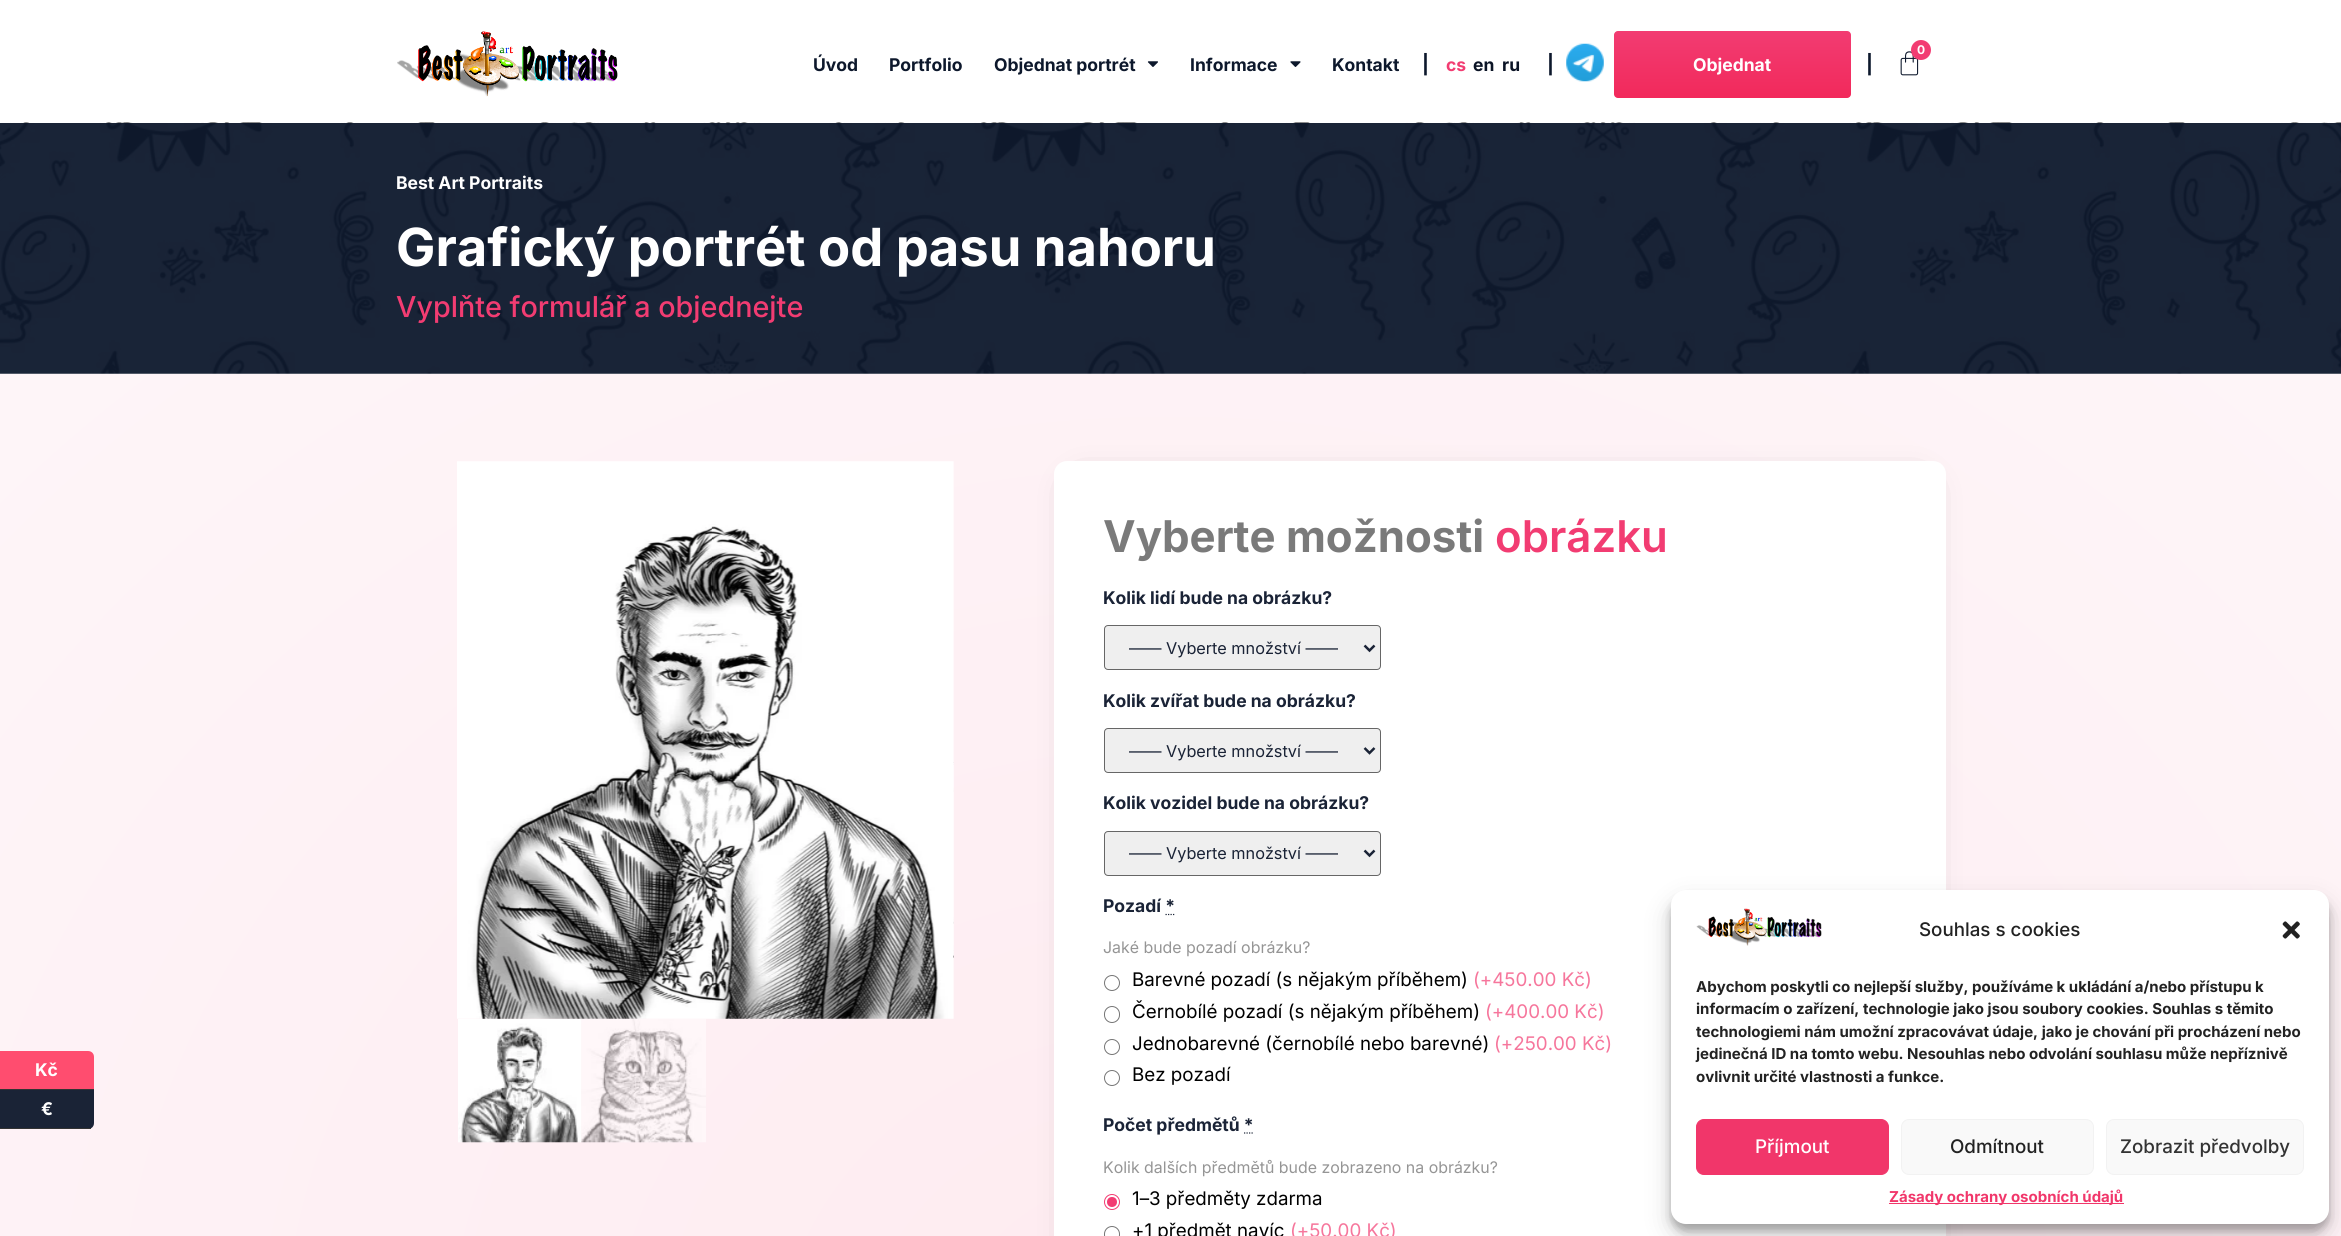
import math
import cairo


def use_color(cr, r, g, b):
  cr.set_source_rgb(r / 255, g / 255, b / 255)

def text(cr, x, y, s, family, size, color, bold=False, italic=False):
  cr.select_font_face(family, cairo.FONT_SLANT_ITALIC if italic else cairo.FONT_SLANT_NORMAL, cairo.FONT_WEIGHT_BOLD if bold else cairo.FONT_WEIGHT_NORMAL)
  cr.set_font_size(size)
  use_color(cr, *color)
  cr.move_to(x, y)
  cr.show_text(s)

def box(cr, x, y, w, h, *color):
  use_color(cr, *color)
  cr.rectangle(x, y, w, h)
  cr.fill()

def round_rect(cr, x, y, w, h, r):
  cr.new_sub_path()
  for i, (u, v) in enumerate([(x + w - r, y + h - r), (x + r, y + h - r), (x + r, y + r), (x + w - r, y + r)]):
    cr.arc(u, v, r, i * math.pi / 2, (i + 1) * math.pi / 2)
  cr.close_path()

def shadow(cr, x, y, w, h, r, blur, alpha):
  cr.push_group_with_content(cairo.CONTENT_ALPHA)
  cr.set_operator(cairo.OPERATOR_SOURCE)
  for i in range(15, -16, -2):
    e = blur * i / 6
    if min(w, h) + 2 * e > 0:
      cr.set_source_rgba(0, 0, 0, alpha * math.erfc((i - 1) / 8.5) / 2)
      round_rect(cr, x - e, y - e, w + 2 * e, h + 2 * e, max(0, min(r + e + blur * .6, min(w, h) / 2 + e)))
      cr.fill()
  cr.mask(cr.pop_group())

def picture(cr, path, x, y, w, h):
  cr.save()
  cr.set_source_surface(cairo.ImageSurface.create_from_png(path), x, y)
  cr.rectangle(x, y, w, h)
  cr.fill()
  cr.restore()

def draw(cr):
  use_color(cr, 255, 255, 255)
  cr.paint()
  picture(cr, "img_01.png", 397, 31, 221, 66)
  picture(cr, "img_02.png", 1900, 51, 19, 25)
  use_color(cr, 242, 60, 114)
  cr.arc(1921, 50, 10, 0, 2 * math.pi)
  cr.fill()
  picture(cr, "img_03.png", 1147, 61, 11, 6)
  picture(cr, "img_04.png", 1290, 61, 11, 6)
  picture(cr, "img_05.png", 1566, 43, 38, 39)
  gradient = cairo.LinearGradient(1733, 31, 1733, 98)
  gradient.add_color_stop_rgba(0, 0.949, 0.235, 0.447, 1)
  gradient.add_color_stop_rgba(1, 0.949, 0.161, 0.357, 1)
  cr.set_source(gradient)
  round_rect(cr, 1614, 31, 237, 67, 4)
  cr.fill()
  gradient = cairo.RadialGradient(0, 0, 0, 0, 0, 1)
  gradient.set_matrix(cairo.Matrix(1 / 1656, 0, 0, 1 / 1407, -1 * 1171 / 1656, -1 * 1369 / 1407))
  gradient.add_color_stop_rgba(0, 0.996, 0.922, 0.941, 1)
  gradient.add_color_stop_rgba(1, 0.996, 0.961, 0.973, 1)
  cr.set_source(gradient)
  cr.rectangle(0, 374, 2341, 862)
  cr.fill()
  use_color(cr, 255, 77, 111)
  cr.new_path()
  cr.move_to(0, 1051)
  cr.line_to(88, 1051)
  cr.curve_to(91.5, 1051, 94, 1053.5, 94, 1057)
  cr.line_to(94, 1090)
  cr.line_to(0, 1090)
  cr.close_path()
  cr.fill()
  box(cr, 0, 1089, 94, 1, 51, 51, 51)
  use_color(cr, 26, 35, 54)
  cr.new_path()
  cr.move_to(0, 1090)
  cr.line_to(94, 1090)
  cr.line_to(94, 1123)
  cr.curve_to(94, 1126.5, 91.5, 1129, 88, 1129)
  cr.line_to(0, 1129)
  cr.close_path()
  cr.fill()
  box(cr, 0, 1128, 91, 1, 51, 51, 51)
  picture(cr, "img_06.png", 0, 122, 2341, 252)
  picture(cr, "img_07.png", 457, 461, 497, 558)
  picture(cr, "img_08.png", 953, 762, 1, 196)
  picture(cr, "img_09.png", 458, 1019, 124, 124)
  picture(cr, "img_10.png", 581, 1018, 125, 125)
  use_color(cr, 0, 0, 0)
  shadow(cr, 1081, 489, 838, 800, 0, 17.5, 0.5)
  use_color(cr, 255, 255, 255)
  round_rect(cr, 1054, 461, 892, 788, 13)
  cr.fill()
  use_color(cr, 239, 239, 239)
  round_rect(cr, 1104.5, 625.5, 276, 44, 3.5)
  cr.fill_preserve()
  use_color(cr, 102, 102, 102)
  cr.set_line_width(1)
  cr.stroke()
  cr.new_path()
  cr.move_to(1364.5, 645.5)
  cr.line_to(1369.5, 650.5)
  cr.line_to(1374.5, 645.5)
  use_color(cr, 26, 35, 54)
  cr.set_line_width(2.5)
  cr.stroke()
  use_color(cr, 239, 239, 239)
  round_rect(cr, 1104.5, 728.5, 276, 44, 3.5)
  cr.fill_preserve()
  use_color(cr, 102, 102, 102)
  cr.set_line_width(1)
  cr.stroke()
  cr.new_path()
  cr.move_to(1364.5, 748)
  cr.line_to(1369.5, 753)
  cr.line_to(1374.5, 748)
  use_color(cr, 26, 35, 54)
  cr.set_line_width(2.5)
  cr.stroke()
  use_color(cr, 239, 239, 239)
  round_rect(cr, 1104.5, 831.5, 276, 44, 3.5)
  cr.fill_preserve()
  use_color(cr, 102, 102, 102)
  cr.set_line_width(1)
  cr.stroke()
  cr.new_path()
  cr.move_to(1364.5, 850.5)
  cr.line_to(1369.5, 855.5)
  cr.line_to(1374.5, 850.5)
  use_color(cr, 26, 35, 54)
  cr.set_line_width(2.5)
  cr.stroke()
  cr.new_path()
  cr.move_to(1165.5, 914.5)
  cr.line_to(1175, 914.5)
  cr.set_line_width(1.2)
  cr.set_dash([1.25, 1.25])
  cr.stroke()
  cr.arc(1112, 983, 7.5, 0, 2 * math.pi)
  use_color(cr, 118, 118, 118)
  cr.set_line_width(1)
  cr.set_dash([])
  cr.stroke()
  round_rect(cr, 1104.5, 1006.5, 15, 16, 7.5)
  cr.stroke()
  cr.arc(1112, 1047, 7.5, 0, 2 * math.pi)
  cr.stroke()
  cr.arc(1112, 1078, 7.5, 0, 2 * math.pi)
  cr.stroke()
  cr.new_path()
  cr.move_to(1244, 1133)
  cr.line_to(1253.5, 1133)
  use_color(cr, 26, 35, 54)
  cr.set_line_width(1.2)
  cr.set_dash([1.25, 1.25])
  cr.stroke()
  cr.arc(1112, 1202, 7.5, 0, 2 * math.pi)
  use_color(cr, 242, 59, 114)
  cr.set_line_width(1)
  cr.set_dash([])
  cr.stroke()
  cr.arc(1112, 1202, 5, 0, 2 * math.pi)
  cr.fill()
  round_rect(cr, 1104.5, 1226.5, 15, 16, 7.5)
  use_color(cr, 118, 118, 118)
  cr.stroke()
  use_color(cr, 0, 0, 0)
  shadow(cr, 1671, 898, 658, 333, 15, 4, 0.23)
  shadow(cr, 1671, 903, 658, 333, 15, 12.5, 0.19)
  use_color(cr, 255, 255, 255)
  round_rect(cr, 1671, 890, 658, 334, 15)
  cr.fill()
  picture(cr, "img_11.png", 1696, 908, 126, 38)
  picture(cr, "img_12.png", 2282, 921, 18, 18)
  use_color(cr, 241, 54, 106)
  round_rect(cr, 1696.5, 1119.5, 192, 55, 7.5)
  cr.fill_preserve()
  cr.stroke()
  use_color(cr, 249, 249, 249)
  round_rect(cr, 1901.5, 1119.5, 192, 55, 7.5)
  cr.fill_preserve()
  use_color(cr, 242, 242, 242)
  cr.stroke()
  use_color(cr, 249, 249, 249)
  round_rect(cr, 2106.5, 1119.5, 197, 55, 7.5)
  cr.fill_preserve()
  use_color(cr, 242, 242, 242)
  cr.stroke()
  box(cr, 1889, 1203, 235, 1, 241, 54, 106)
  text(cr, 1917, 54, "0", "Inter", 12, (255, 255, 255), bold=True)
  text(cr, 813, 71, "Úvod", "Inter", 17.5, (13, 24, 44), bold=True)
  text(cr, 889, 71, "Portfolio", "Inter", 17.5, (13, 24, 44), bold=True)
  text(cr, 994, 71, "Objednat portrét", "Inter", 17.5, (13, 24, 44), bold=True)
  text(cr, 1190, 71, "Informace", "Inter", 17.5, (13, 24, 44), bold=True)
  text(cr, 1332, 71, "Kontakt", "Inter", 17.5, (13, 24, 44), bold=True)
  text(cr, 1422, 71, "|", "Inter", 18.75, (13, 24, 44), bold=True)
  text(cr, 1446, 71, "cs", "Inter", 17.5, (242, 60, 114), bold=True)
  text(cr, 1473, 71, "en", "Inter", 17.5, (11, 20, 38), bold=True)
  text(cr, 1502, 71, "ru", "Inter", 17.5, (11, 20, 38), bold=True)
  text(cr, 1547, 71, "|", "Inter", 18.75, (13, 24, 44), bold=True)
  text(cr, 1693, 71, "Objednat", "Inter", 17.5, (255, 255, 255), bold=True)
  text(cr, 1866, 71, "|", "Inter", 18.75, (13, 24, 44), bold=True)
  text(cr, 35, 1076, "Kč", "Inter", 17.5, (255, 255, 255), bold=True)
  text(cr, 41, 1115, "€", "Inter", 17.5, (255, 255, 255), bold=True)
  text(cr, 396, 189, "Best Art Portraits", "Inter", 17.5, (255, 255, 255), bold=True)
  text(cr, 396, 266, "Grafický portrét od pasu nahoru", "Inter", 52.5, (255, 255, 255), bold=True)
  text(cr, 396, 317, "Vyplňte formulář a objednejte", "Inter Medium", 28.75, (242, 60, 114))
  text(cr, 1103, 552, "Vyberte možnosti", "Inter", 43.75, (122, 122, 122), bold=True)
  text(cr, 1495, 552, "obrázku", "Inter SemiBold", 43.75, (242, 60, 114))
  text(cr, 1103, 604, "Kolik lidí bude na obrázku?", "Inter", 17.5, (26, 35, 54), bold=True)
  text(cr, 1129, 654, "—— Vyberte množství ——", "Inter", 16.25, (26, 35, 54))
  text(cr, 1103, 707, "Kolik zvířat bude na obrázku?", "Inter", 17.5, (26, 35, 54), bold=True)
  text(cr, 1129, 757, "—— Vyberte množství ——", "Inter", 16.25, (26, 35, 54))
  text(cr, 1103, 809, "Kolik vozidel bude na obrázku?", "Inter", 17.5, (26, 35, 54), bold=True)
  text(cr, 1129, 859, "—— Vyberte množství ——", "Inter", 16.25, (26, 35, 54))
  text(cr, 1103, 912, "Pozadí *", "Inter", 17.5, (26, 35, 54), bold=True)
  text(cr, 1103, 953, "Jaké bude pozadí obrázku?", "Inter", 15.9, (149, 149, 149))
  text(cr, 1132, 986, "Barevné pozadí (s nějakým příběhem)", "Inter", 18.75, (0, 0, 0))
  text(cr, 1473, 986, "(+450.00 Kč)", "Inter", 18.75, (246, 118, 156))
  text(cr, 1132, 1018, "Černobílé pozadí (s nějakým příběhem)", "Inter", 18.75, (0, 0, 0))
  text(cr, 1485, 1018, "(+400.00 Kč)", "Inter", 18.75, (246, 118, 156))
  text(cr, 1132, 1050, "Jednobarevné (černobílé nebo barevné)", "Inter", 18.75, (0, 0, 0))
  text(cr, 1494, 1050, "(+250.00 Kč)", "Inter", 18.75, (246, 118, 156))
  text(cr, 1132, 1081, "Bez pozadí", "Inter", 18.75, (0, 0, 0))
  text(cr, 1103, 1131, "Počet předmětů *", "Inter", 17.5, (26, 35, 54), bold=True)
  text(cr, 1103, 1173, "Kolik dalších předmětů bude zobrazeno na obrázku?", "Inter", 15.9, (149, 149, 149))
  text(cr, 1132, 1205, "1–3 předměty zdarma", "Inter", 18.75, (0, 0, 0))
  text(cr, 1132, 1237, "+1 předmět navíc", "Inter", 18.75, (0, 0, 0))
  text(cr, 1290, 1237, "(+50.00 Kč)", "Inter", 18.75, (246, 118, 156))
  text(cr, 1919, 936, "Souhlas s cookies", "Inter Medium", 18.75, (34, 34, 34))
  text(cr, 1696, 992, "Abychom poskytli co nejlepší služby, používáme k ukládání a/nebo přístupu k", "Inter", 15, (34, 34, 34), bold=True)
  text(cr, 1696, 1014, "informacím o zařízení, technologie jako jsou soubory cookies. Souhlas s těmito", "Inter", 15, (34, 34, 34), bold=True)
  text(cr, 1696, 1037, "technologiemi nám umožní zpracovávat údaje, jako je chování při procházení nebo", "Inter", 15, (34, 34, 34), bold=True)
  text(cr, 1696, 1059, "jedinečná ID na tomto webu. Nesouhlas nebo odvolání souhlasu může nepříznivě", "Inter", 15, (34, 34, 34), bold=True)
  text(cr, 1696, 1082, "ovlivnit určité vlastnosti a funkce.", "Inter", 15, (34, 34, 34), bold=True)
  text(cr, 1755, 1153, "Příjmout", "Inter Medium", 18.75, (255, 255, 255))
  text(cr, 1950, 1153, "Odmítnout", "Inter Medium", 18.75, (34, 34, 34))
  text(cr, 2120, 1153, "Zobrazit předvolby", "Inter Medium", 18.75, (51, 51, 51))
  text(cr, 1889, 1202, "Zásady ochrany osobních údajů", "Inter", 15, (241, 54, 106), bold=True)


surface = cairo.ImageSurface(cairo.FORMAT_RGB24, 2341, 1236)
cr = cairo.Context(surface)
options = cairo.FontOptions()
options.set_hint_metrics(cairo.HINT_METRICS_OFF)
options.set_hint_style(cairo.HINT_STYLE_NONE)
cr.set_font_options(options)
cr.set_miter_limit(4)
draw(cr)
surface.write_to_png("out.png")
